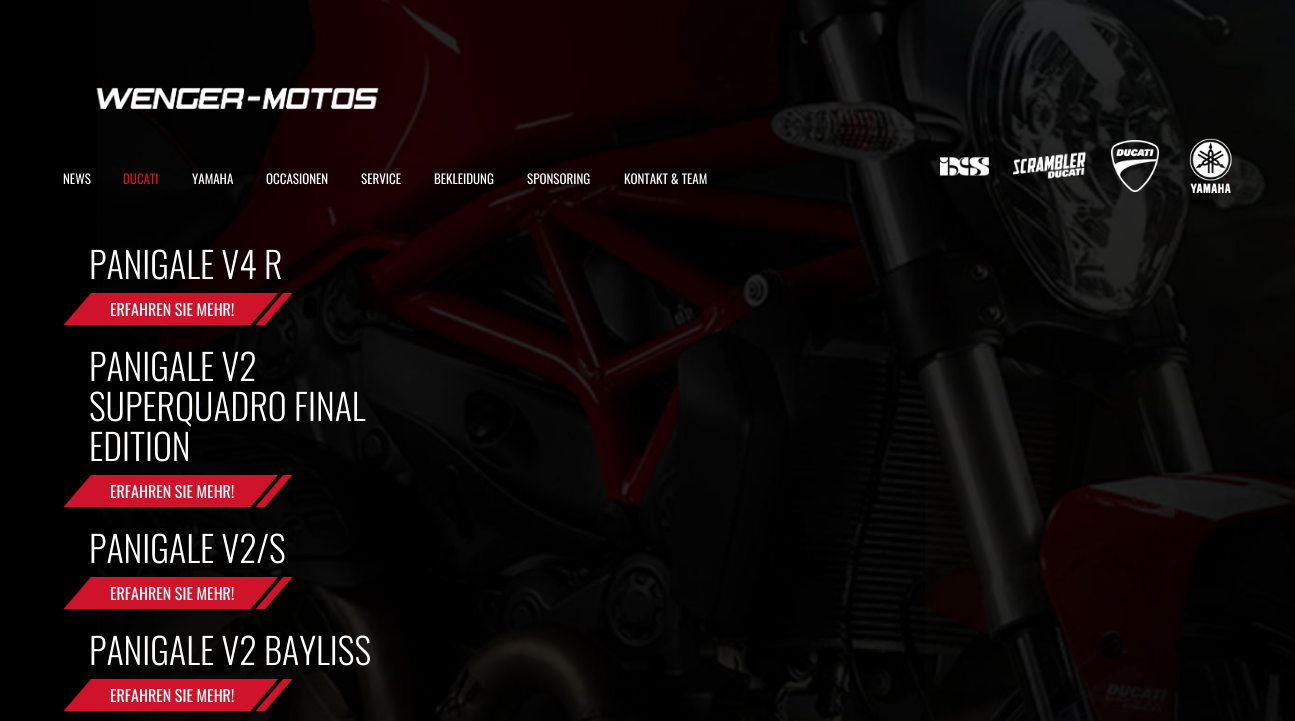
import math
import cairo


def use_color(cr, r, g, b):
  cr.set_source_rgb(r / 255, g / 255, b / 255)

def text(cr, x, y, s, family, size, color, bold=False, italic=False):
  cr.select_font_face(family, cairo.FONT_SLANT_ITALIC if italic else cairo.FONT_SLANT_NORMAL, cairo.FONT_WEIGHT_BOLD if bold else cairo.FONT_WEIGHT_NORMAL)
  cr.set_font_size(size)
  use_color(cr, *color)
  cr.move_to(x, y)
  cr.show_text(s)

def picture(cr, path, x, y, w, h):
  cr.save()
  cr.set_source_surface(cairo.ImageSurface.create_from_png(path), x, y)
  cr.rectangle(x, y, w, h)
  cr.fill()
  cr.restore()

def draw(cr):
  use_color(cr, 255, 255, 255)
  cr.paint()
  picture(cr, "img_01.png", 0, 0, 1295, 721)
  picture(cr, "img_02.png", 96, 87, 283, 23)
  picture(cr, "img_03.png", 940, 157, 49, 19)
  picture(cr, "img_04.png", 1013, 151, 73, 28)
  picture(cr, "img_05.png", 1111, 140, 48, 52)
  picture(cr, "img_06.png", 1189, 138, 43, 55)
  picture(cr, "img_07.png", 63, 293, 230, 32)
  picture(cr, "img_08.png", 63, 475, 230, 32)
  picture(cr, "img_09.png", 63, 577, 230, 32)
  picture(cr, "img_10.png", 63, 679, 230, 32)
  text(cr, 63, 184, "NEWS", "Oswald", 13, (255, 255, 255))
  text(cr, 123, 184, "DUCATI", "Oswald", 13, (207, 19, 42))
  text(cr, 192, 184, "YAMAHA", "Oswald", 13, (255, 255, 255))
  text(cr, 266, 184, "OCCASIONEN", "Oswald", 13, (255, 255, 255))
  text(cr, 361, 184, "SERVICE", "Oswald", 13, (255, 255, 255))
  text(cr, 434, 184, "BEKLEIDUNG", "Oswald", 13, (255, 255, 255))
  text(cr, 527, 184, "SPONSORING", "Oswald", 13, (255, 255, 255))
  text(cr, 624, 184, "KONTAKT & TEAM", "Oswald", 13, (255, 255, 255))
  text(cr, 89, 279, "PANIGALE V4 R", "Oswald Light", 36, (255, 255, 255))
  text(cr, 110, 316, "ERFAHREN SIE MEHR!", "Oswald", 16, (255, 255, 255))
  text(cr, 89, 381, "PANIGALE V2", "Oswald Light", 36, (255, 255, 255))
  text(cr, 89, 421, "SUPERQUADRO FINAL", "Oswald Light", 36, (255, 255, 255))
  text(cr, 89, 461, "EDITION", "Oswald Light", 36, (255, 255, 255))
  text(cr, 110, 498, "ERFAHREN SIE MEHR!", "Oswald", 16, (255, 255, 255))
  text(cr, 89, 563, "PANIGALE V2/S", "Oswald Light", 36, (255, 255, 255))
  text(cr, 110, 600, "ERFAHREN SIE MEHR!", "Oswald", 16, (255, 255, 255))
  text(cr, 89, 665, "PANIGALE V2 BAYLISS", "Oswald Light", 36, (255, 255, 255))
  text(cr, 110, 702, "ERFAHREN SIE MEHR!", "Oswald", 16, (255, 255, 255))


surface = cairo.ImageSurface(cairo.FORMAT_RGB24, 1295, 721)
cr = cairo.Context(surface)
options = cairo.FontOptions()
options.set_hint_metrics(cairo.HINT_METRICS_OFF)
options.set_hint_style(cairo.HINT_STYLE_NONE)
cr.set_font_options(options)
cr.set_miter_limit(4)
draw(cr)
surface.write_to_png("out.png")
